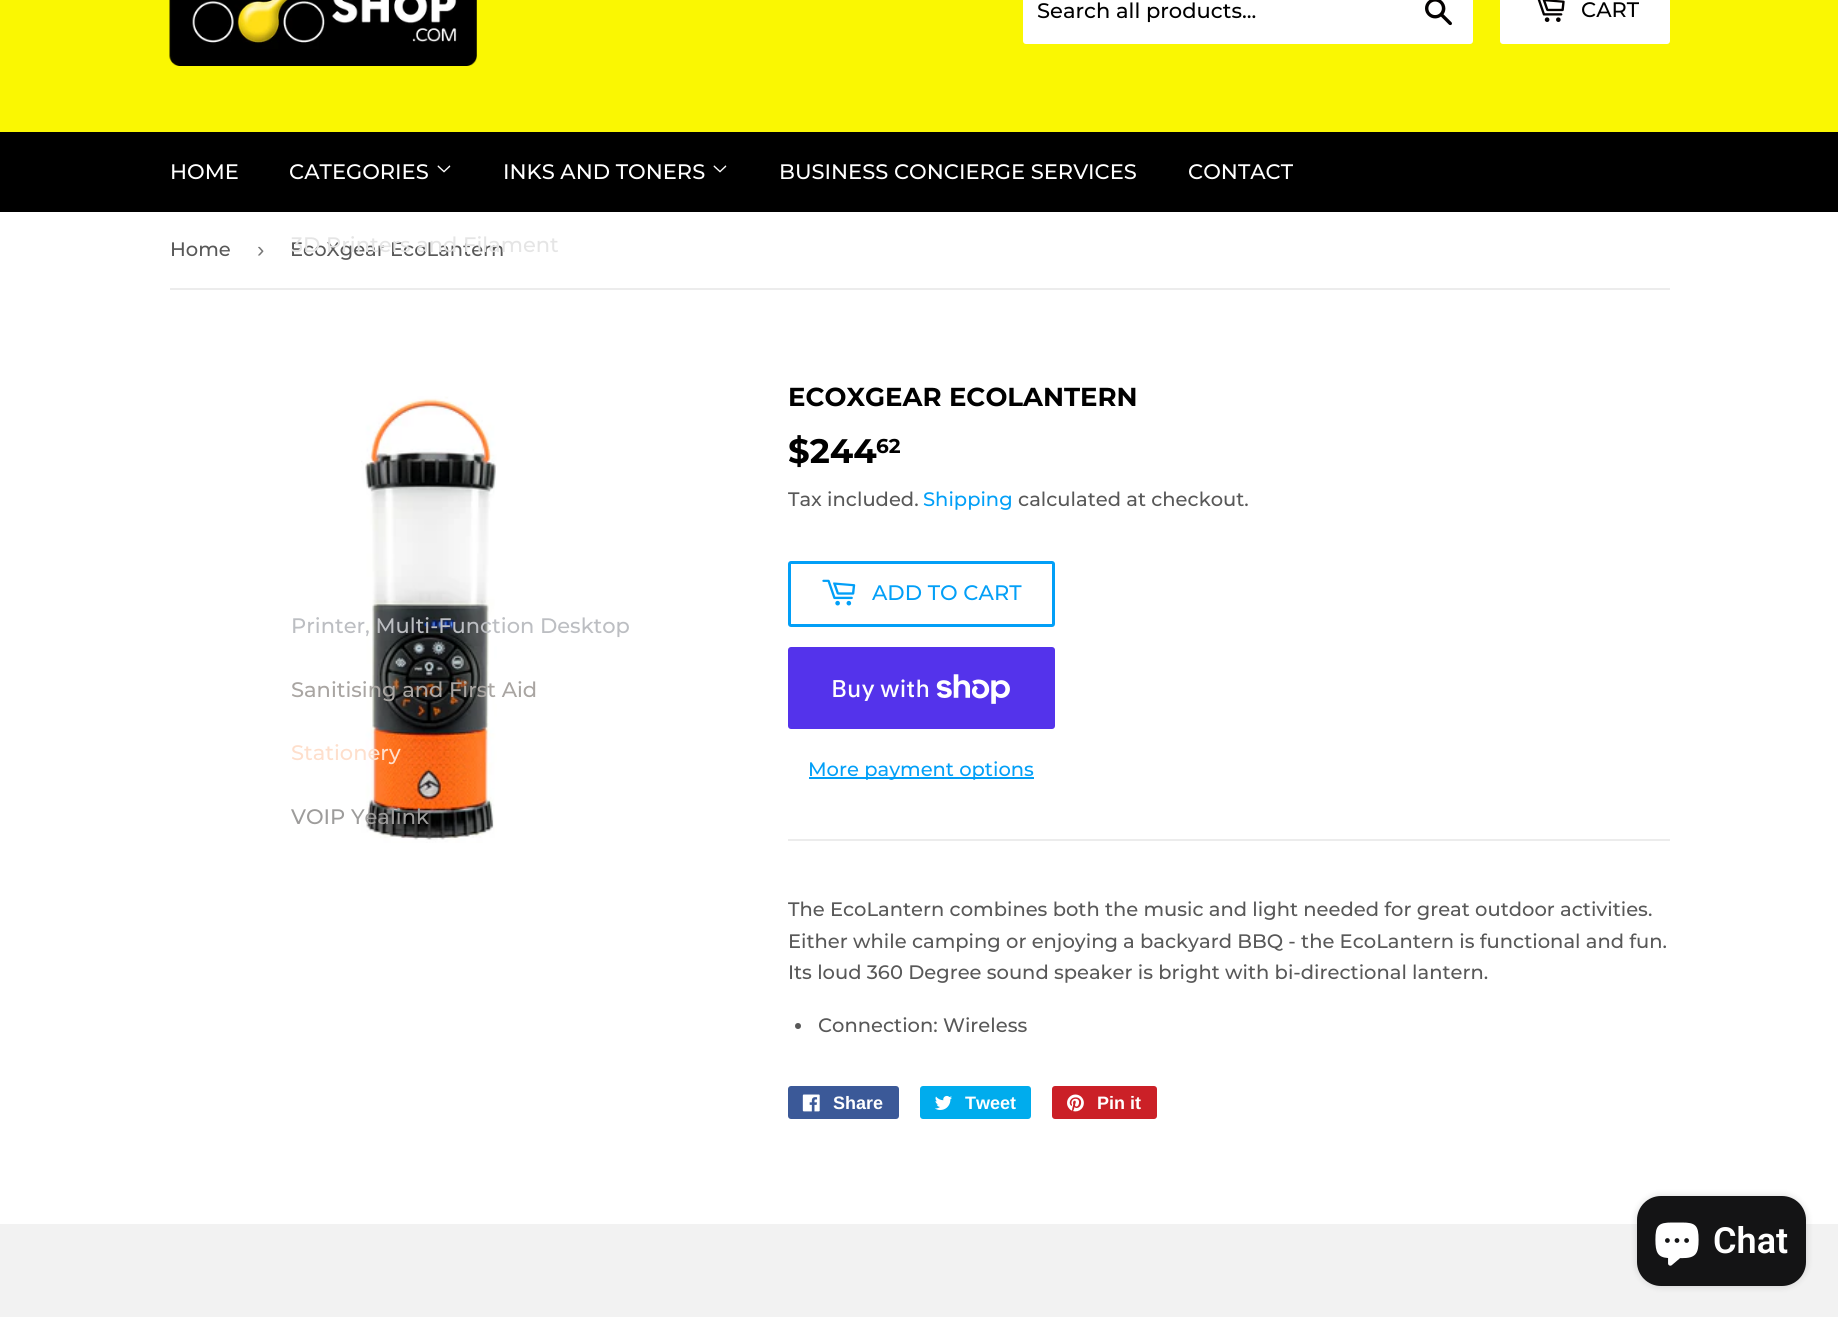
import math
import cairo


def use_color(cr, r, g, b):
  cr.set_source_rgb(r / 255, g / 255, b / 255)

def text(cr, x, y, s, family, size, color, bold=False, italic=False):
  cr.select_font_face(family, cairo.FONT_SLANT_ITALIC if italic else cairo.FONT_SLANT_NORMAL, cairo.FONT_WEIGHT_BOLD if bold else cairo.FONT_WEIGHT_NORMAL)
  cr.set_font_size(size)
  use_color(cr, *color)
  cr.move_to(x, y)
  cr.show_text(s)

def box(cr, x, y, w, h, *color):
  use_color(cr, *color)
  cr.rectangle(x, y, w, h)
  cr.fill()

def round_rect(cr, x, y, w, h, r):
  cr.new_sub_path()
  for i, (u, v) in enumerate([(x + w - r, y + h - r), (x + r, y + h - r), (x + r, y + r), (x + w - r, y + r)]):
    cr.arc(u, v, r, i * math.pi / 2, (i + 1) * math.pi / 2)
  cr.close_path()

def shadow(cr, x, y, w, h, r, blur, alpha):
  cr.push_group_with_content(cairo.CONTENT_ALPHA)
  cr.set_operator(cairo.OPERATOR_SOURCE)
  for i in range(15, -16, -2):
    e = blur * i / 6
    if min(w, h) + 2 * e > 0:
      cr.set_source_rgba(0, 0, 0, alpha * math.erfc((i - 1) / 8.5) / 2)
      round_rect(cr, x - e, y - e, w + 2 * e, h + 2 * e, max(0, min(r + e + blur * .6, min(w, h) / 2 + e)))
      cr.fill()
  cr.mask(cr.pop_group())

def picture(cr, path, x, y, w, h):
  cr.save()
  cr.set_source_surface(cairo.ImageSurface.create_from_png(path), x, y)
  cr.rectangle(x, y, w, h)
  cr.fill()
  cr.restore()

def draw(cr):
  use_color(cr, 255, 255, 255)
  cr.paint()
  box(cr, 0, 0, 1838, 132, 250, 247, 2)
  picture(cr, "img_01.png", 169, 0, 308, 66)
  use_color(cr, 255, 255, 255)
  round_rect(cr, 1023, -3, 450, 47, 3)
  cr.fill()
  picture(cr, "img_02.png", 1425, 0, 27, 26)
  round_rect(cr, 1500, -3, 170, 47, 3)
  cr.fill()
  picture(cr, "img_03.png", 1537, 0, 28, 22)
  box(cr, 0, 132, 1838, 80, 0, 0, 0)
  picture(cr, "img_04.png", 437, 165, 14, 8)
  picture(cr, "img_04.png", 713, 165, 14, 8)
  box(cr, 170, 288, 1500, 2, 236, 236, 236)
  picture(cr, "img_05.png", 361, 396, 136, 447)
  round_rect(cr, 789.5, 562.5, 264, 63, 1.5)
  use_color(cr, 2, 159, 247)
  cr.set_line_width(3)
  cr.stroke()
  picture(cr, "img_06.png", 822, 579, 34, 27)
  use_color(cr, 84, 51, 235)
  round_rect(cr, 788, 647, 267, 82, 3)
  cr.fill()
  picture(cr, "img_07.png", 936, 674, 74, 30)
  box(cr, 809, 777, 225, 2, 2, 159, 247)
  box(cr, 788, 839, 882, 2, 236, 236, 236)
  use_color(cr, 88, 88, 88)
  cr.arc(798, 1026, 3, 0, 2 * math.pi)
  cr.fill()
  use_color(cr, 59, 89, 152)
  round_rect(cr, 788, 1086, 111, 33, 3)
  cr.fill()
  picture(cr, "img_08.png", 802, 1094, 18, 18)
  use_color(cr, 0, 172, 237)
  round_rect(cr, 920, 1086, 111, 33, 3)
  cr.fill()
  picture(cr, "img_09.png", 935, 1095, 17, 15)
  use_color(cr, 203, 32, 39)
  round_rect(cr, 1052, 1086, 105, 33, 3)
  cr.fill()
  picture(cr, "img_10.png", 1067, 1094, 17, 18)
  box(cr, 0, 1224, 1838, 93, 242, 242, 242)
  use_color(cr, 0, 0, 0)
  shadow(cr, 1637, 1196, 169, 90, 24, 4, 0.15)
  use_color(cr, 20, 20, 21)
  round_rect(cr, 1637, 1196, 169, 90, 24)
  cr.fill()
  picture(cr, "img_11.png", 1655, 1222, 44, 44)
  text(cr, 1037, 18, "Search all products...", "Montserrat Medium", 21, (0, 0, 0))
  text(cr, 1581, 17, "CART", "Montserrat Medium", 21, (0, 0, 0))
  text(cr, 170, 179, "HOME", "Montserrat Medium", 21, (255, 255, 255))
  text(cr, 289, 179, "CATEGORIES", "Montserrat Medium", 21, (255, 255, 255))
  text(cr, 291, 633, "Printer, Multi-Function Desktop", "Montserrat Medium", 21, (188, 190, 194))
  text(cr, 291, 697, "Sanitising and First Aid", "Montserrat Medium", 21, (169, 165, 162))
  text(cr, 291, 760, "Stationery", "Montserrat Medium", 21, (254, 223, 204))
  text(cr, 291, 824, "VOIP Yealink", "Montserrat Medium", 21, (157, 156, 155))
  text(cr, 503, 179, "INKS AND TONERS", "Montserrat Medium", 21, (255, 255, 255))
  text(cr, 779, 179, "BUSINESS CONCIERGE SERVICES", "Montserrat Medium", 21, (255, 255, 255))
  text(cr, 1188, 179, "CONTACT", "Montserrat Medium", 21, (255, 255, 255))
  text(cr, 170, 256, "Home", "Montserrat Medium", 19.5, (88, 88, 88))
  text(cr, 257, 257, "›", "Liberation Sans", 22, (118, 118, 118))
  text(cr, 290, 256, "EcoXgear EcoLantern", "Montserrat Medium", 19.5, (88, 88, 88))
  text(cr, 291, 252, "3D Printers and Filament", "Montserrat Medium", 21, (229, 229, 229))
  text(cr, 788, 406, "ECOXGEAR ECOLANTERN", "Montserrat", 26, (0, 0, 0), bold=True)
  text(cr, 788, 463, "$244", "Montserrat", 34, (0, 0, 0), bold=True)
  text(cr, 876, 453, "62", "Montserrat", 20, (0, 0, 0), bold=True)
  text(cr, 788, 506, "Tax included.", "Montserrat Medium", 19.5, (88, 88, 88))
  text(cr, 923, 506, "Shipping", "Montserrat Medium", 19.5, (2, 159, 247))
  text(cr, 1018, 506, "calculated at checkout.", "Montserrat Medium", 19.5, (88, 88, 88))
  text(cr, 872, 600, "ADD TO CART", "Montserrat Medium", 21, (2, 159, 247))
  text(cr, 831, 697, "Buy with", "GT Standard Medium", 24, (255, 255, 255))
  text(cr, 808, 776, "More payment options", "Montserrat Medium", 19.5, (2, 159, 247))
  text(cr, 788, 916, "The EcoLantern combines both the music and light needed for great outdoor activities.", "Montserrat Medium", 19.5, (88, 88, 88))
  text(cr, 788, 948, "Either while camping or enjoying a backyard BBQ - the EcoLantern is functional and fun.", "Montserrat Medium", 19.5, (88, 88, 88))
  text(cr, 788, 979, "Its loud 360 Degree sound speaker is bright with bi-directional lantern.", "Montserrat Medium", 19.5, (88, 88, 88))
  text(cr, 818, 1032, "Connection: Wireless", "Montserrat Medium", 19.5, (88, 88, 88))
  text(cr, 833, 1109, "Share", "Liberation Sans", 18, (255, 255, 255), bold=True)
  text(cr, 965, 1109, "Tweet", "Liberation Sans", 18, (255, 255, 255), bold=True)
  text(cr, 1097, 1109, "Pin it", "Liberation Sans", 18, (255, 255, 255), bold=True)
  text(cr, 1713, 1253, "Chat", "Roboto SemiBold", 36, (255, 255, 255))


surface = cairo.ImageSurface(cairo.FORMAT_RGB24, 1838, 1317)
cr = cairo.Context(surface)
options = cairo.FontOptions()
options.set_hint_metrics(cairo.HINT_METRICS_OFF)
options.set_hint_style(cairo.HINT_STYLE_NONE)
cr.set_font_options(options)
cr.set_miter_limit(4)
draw(cr)
surface.write_to_png("out.png")
